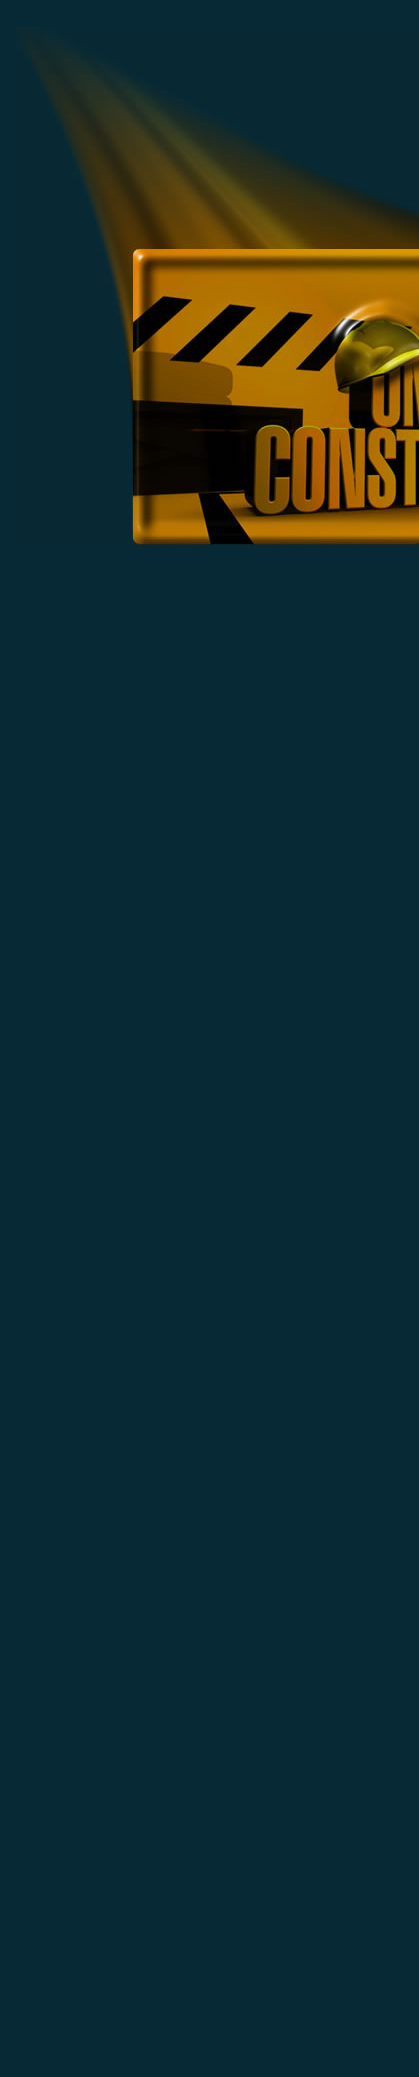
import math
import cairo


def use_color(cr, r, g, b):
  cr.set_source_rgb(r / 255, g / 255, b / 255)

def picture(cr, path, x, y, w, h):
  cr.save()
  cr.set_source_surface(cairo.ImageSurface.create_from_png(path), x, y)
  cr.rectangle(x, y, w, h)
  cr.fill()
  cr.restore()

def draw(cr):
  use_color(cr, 6, 41, 53)
  cr.paint()
  picture(cr, "img_01.png", 16, 27, 403, 518)


surface = cairo.ImageSurface(cairo.FORMAT_RGB24, 419, 2077)
cr = cairo.Context(surface)
options = cairo.FontOptions()
options.set_hint_metrics(cairo.HINT_METRICS_OFF)
options.set_hint_style(cairo.HINT_STYLE_NONE)
cr.set_font_options(options)
cr.set_miter_limit(4)
draw(cr)
surface.write_to_png("out.png")
